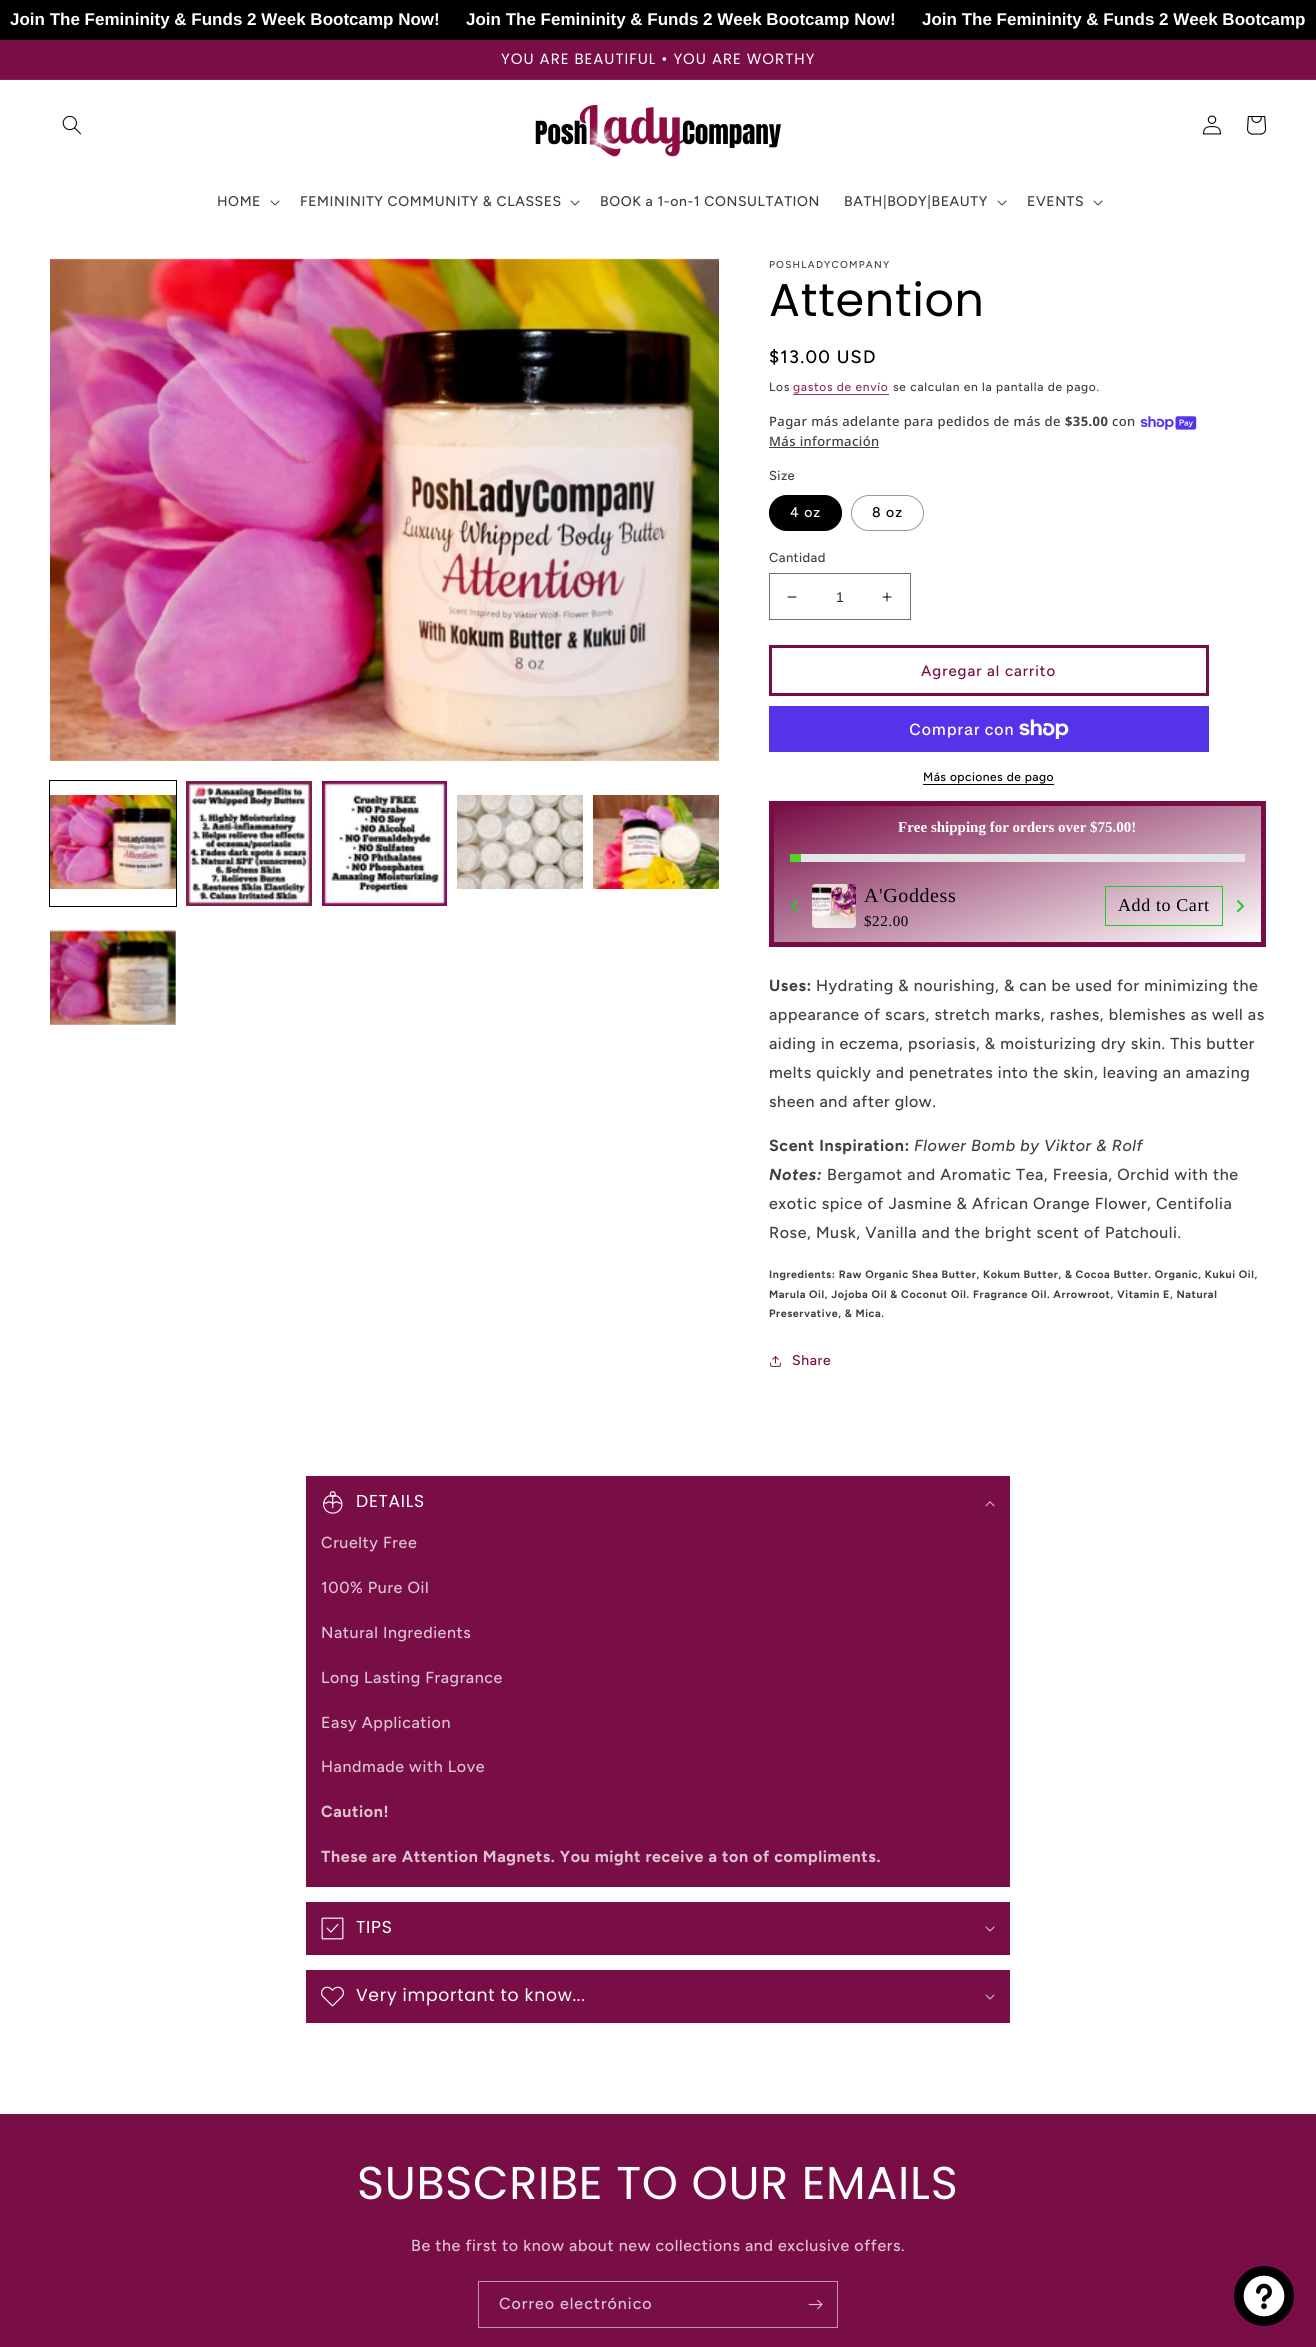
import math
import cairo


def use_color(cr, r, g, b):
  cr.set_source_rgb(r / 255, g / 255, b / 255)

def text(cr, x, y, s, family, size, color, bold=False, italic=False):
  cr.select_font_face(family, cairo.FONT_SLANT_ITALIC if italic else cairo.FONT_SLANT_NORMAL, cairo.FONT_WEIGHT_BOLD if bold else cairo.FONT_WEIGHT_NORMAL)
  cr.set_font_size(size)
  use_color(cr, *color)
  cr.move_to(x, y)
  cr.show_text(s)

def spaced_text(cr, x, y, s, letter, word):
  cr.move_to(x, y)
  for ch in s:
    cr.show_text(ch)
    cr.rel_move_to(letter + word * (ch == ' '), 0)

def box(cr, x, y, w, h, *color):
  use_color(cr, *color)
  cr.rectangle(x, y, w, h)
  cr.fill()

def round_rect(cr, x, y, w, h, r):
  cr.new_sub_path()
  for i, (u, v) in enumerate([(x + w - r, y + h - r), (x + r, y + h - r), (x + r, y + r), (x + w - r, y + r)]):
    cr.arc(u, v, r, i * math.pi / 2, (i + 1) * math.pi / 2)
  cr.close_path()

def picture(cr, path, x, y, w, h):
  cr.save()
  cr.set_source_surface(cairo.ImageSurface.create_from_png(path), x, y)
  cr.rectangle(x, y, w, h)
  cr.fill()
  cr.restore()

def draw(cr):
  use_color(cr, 255, 255, 255)
  cr.paint()
  box(cr, 0, 0, 1316, 40, 0, 0, 0)
  box(cr, 0, 40, 1316, 39, 121, 14, 70)
  box(cr, 0, 79, 1316, 1, 132, 33, 85)
  picture(cr, "img_01.png", 62, 115, 19, 20)
  picture(cr, "img_02.png", 535, 104, 246, 53)
  picture(cr, "img_03.png", 1203, 115, 18, 20)
  picture(cr, "img_04.png", 1247, 116, 20, 19)
  picture(cr, "img_05.png", 270, 200, 10, 6)
  picture(cr, "img_05.png", 570, 200, 10, 6)
  picture(cr, "img_05.png", 997, 200, 10, 6)
  picture(cr, "img_05.png", 1093, 200, 10, 6)
  picture(cr, "img_06.png", 50, 258, 669, 503)
  cr.rectangle(49.5, 780.5, 127, 126)
  use_color(cr, 0, 0, 0)
  cr.set_line_width(1)
  cr.stroke()
  picture(cr, "img_07.png", 50, 795, 126, 94)
  picture(cr, "img_08.png", 186, 781, 126, 125)
  picture(cr, "img_09.png", 322, 781, 125, 125)
  picture(cr, "img_10.png", 457, 795, 126, 94)
  picture(cr, "img_11.png", 593, 795, 126, 94)
  picture(cr, "img_12.png", 50, 930, 126, 95)
  box(cr, 793, 394, 96, 1, 141, 50, 98)
  picture(cr, "img_13.png", 1140, 416, 57, 14)
  box(cr, 769, 447, 110, 1, 64, 64, 64)
  use_color(cr, 0, 0, 0)
  round_rect(cr, 769, 495, 73, 36, 18)
  cr.fill()
  round_rect(cr, 769.5, 495.5, 72, 35, 17.5)
  cr.set_source_rgba(0, 0, 0, 0.4)
  cr.stroke()
  round_rect(cr, 851.5, 495.5, 72, 35, 17.5)
  use_color(cr, 153, 153, 153)
  cr.stroke()
  picture(cr, "img_14.png", 787, 596, 10, 2)
  picture(cr, "img_15.png", 882, 592, 10, 10)
  cr.rectangle(769.5, 573.5, 141, 46)
  use_color(cr, 115, 115, 115)
  cr.stroke()
  cr.rectangle(770.5, 646.5, 437, 48)
  use_color(cr, 121, 14, 70)
  cr.set_line_width(3)
  cr.stroke()
  box(cr, 769, 706, 440, 46, 84, 51, 235)
  picture(cr, "img_16.png", 1019, 719, 50, 20)
  box(cr, 923, 784, 131, 1, 0, 0, 0)
  gradient = cairo.LinearGradient(978, 744, 1057, 1004)
  gradient.add_color_stop_rgba(0, 0.471, 0.051, 0.271, 1)
  gradient.add_color_stop_rgba(1, 1, 1, 1, 1)
  cr.set_source(gradient)
  cr.rectangle(774, 806, 487, 136)
  cr.fill()
  cr.rectangle(771.5, 803.5, 492, 141)
  use_color(cr, 120, 13, 69)
  cr.set_line_width(5)
  cr.stroke()
  box(cr, 801, 854, 444, 8, 228, 229, 231)
  box(cr, 790, 854, 11, 8, 83, 213, 35)
  picture(cr, "img_17.png", 812, 884, 44, 44)
  cr.rectangle(1105.5, 886.5, 117, 39)
  use_color(cr, 28, 205, 42)
  cr.set_line_width(1)
  cr.stroke()
  picture(cr, "img_18.png", 791, 900, 7, 12)
  picture(cr, "img_19.png", 1237, 900, 7, 13)
  picture(cr, "img_20.png", 770, 1356, 11, 11)
  box(cr, 306, 1476, 704, 411, 121, 14, 70)
  picture(cr, "img_21.png", 323, 1491, 20, 23)
  picture(cr, "img_22.png", 985, 1501, 10, 6)
  box(cr, 306, 1902, 704, 53, 121, 14, 70)
  picture(cr, "img_23.png", 321, 1917, 23, 23)
  picture(cr, "img_24.png", 985, 1926, 10, 6)
  box(cr, 306, 1970, 704, 53, 121, 14, 70)
  picture(cr, "img_25.png", 321, 1986, 23, 21)
  picture(cr, "img_24.png", 985, 1994, 10, 6)
  box(cr, 0, 2114, 1316, 233, 121, 14, 70)
  cr.rectangle(478.5, 2281.5, 359, 46)
  use_color(cr, 195, 147, 172)
  cr.stroke()
  picture(cr, "img_26.png", 808, 2299, 15, 11)
  use_color(cr, 0, 0, 0)
  cr.arc(1264, 2296, 30, 0, 2 * math.pi)
  cr.fill()
  picture(cr, "img_27.png", 1243, 2275, 42, 42)
  text(cr, 10, 25, "Join The Femininity & Funds 2 Week Bootcamp Now!", "Liberation Sans", 17, (255, 255, 255), bold=True)
  text(cr, 466, 25, "Join The Femininity & Funds 2 Week Bootcamp Now!", "Liberation Sans", 17, (255, 255, 255), bold=True)
  text(cr, 922, 25, "Join The Femininity & Funds 2 Week Bootcamp", "Liberation Sans", 17, (255, 255, 255), bold=True)
  cr.select_font_face("Poppins")
  cr.set_font_size(14.95)
  spaced_text(cr, 501, 64, "YOU ARE BEAUTIFUL • YOU ARE WORTHY", 1, 0)
  cr.select_font_face("Figtree Medium")
  cr.set_font_size(14)
  use_color(cr, 64, 64, 64)
  spaced_text(cr, 217, 206, "HOME", 0.6, 0)
  spaced_text(cr, 300, 206, "FEMININITY COMMUNITY & CLASSES", 0.6, 0)
  spaced_text(cr, 600, 206, "BOOK a 1-on-1 CONSULTATION", 0.6, 0)
  spaced_text(cr, 844, 206, "BATH|BODY|BEAUTY", 0.6, 0)
  spaced_text(cr, 1027, 206, "EVENTS", 0.6, 0)
  cr.set_font_size(10)
  spaced_text(cr, 769, 268, "POSHLADYCOMPANY", 1.25, 0)
  cr.select_font_face("Poppins")
  cr.set_font_size(46)
  use_color(cr, 0, 0, 0)
  spaced_text(cr, 769, 316, "Attention", 0.7, 0)
  cr.select_font_face("Figtree Medium")
  cr.set_font_size(18)
  spaced_text(cr, 769, 363, "$13.00 USD", 1.25, 0)
  cr.set_font_size(12)
  use_color(cr, 64, 64, 64)
  spaced_text(cr, 769, 391, "Los", 0.7, 0)
  use_color(cr, 141, 50, 98)
  spaced_text(cr, 793, 391, "gastos de envío", 0.7, 0)
  use_color(cr, 64, 64, 64)
  spaced_text(cr, 893, 391, "se calculan en la pantalla de pago.", 0.7, 0)
  cr.select_font_face("Noto Sans Medium")
  cr.set_font_size(13)
  spaced_text(cr, 769, 426, "Pagar más adelante para pedidos de más de", 0.4, 0)
  cr.select_font_face("Noto Sans", cairo.FONT_SLANT_NORMAL, cairo.FONT_WEIGHT_BOLD)
  spaced_text(cr, 1065, 426, "$35.00", 0.4, 0)
  cr.select_font_face("Noto Sans Medium")
  spaced_text(cr, 1112, 426, "con", 0.4, 0)
  spaced_text(cr, 769, 446, "Más información", 0.4, 0)
  cr.select_font_face("Figtree Medium")
  spaced_text(cr, 769, 480, "Size", 0.4, 0)
  cr.set_font_size(14)
  use_color(cr, 255, 255, 255)
  spaced_text(cr, 790, 517, "4 oz", 1, 0)
  use_color(cr, 0, 0, 0)
  spaced_text(cr, 872, 517, "8 oz", 1, 0)
  cr.set_font_size(13)
  use_color(cr, 64, 64, 64)
  spaced_text(cr, 769, 562, "Cantidad", 0.4, 0)
  text(cr, 836, 602, "1", "Liberation Sans", 14, (38, 38, 38))
  cr.select_font_face("Figtree Medium")
  cr.set_font_size(15)
  use_color(cr, 121, 14, 70)
  spaced_text(cr, 921, 676, "Agregar al carrito", 1, 0)
  cr.select_font_face("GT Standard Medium")
  cr.set_font_size(16)
  use_color(cr, 255, 255, 255)
  spaced_text(cr, 909, 735, "Comprar con", 0.6, 0)
  cr.select_font_face("Figtree Medium")
  cr.set_font_size(12)
  use_color(cr, 0, 0, 0)
  spaced_text(cr, 923, 781, "Más opciones de pago", 0.5, 0)
  text(cr, 898, 832, "Free shipping for orders over $75.00!", "Liberation Serif", 15, (255, 255, 255), bold=True)
  cr.select_font_face("Liberation Serif")
  cr.set_font_size(20)
  use_color(cr, 0, 0, 0)
  spaced_text(cr, 864, 902, "A'Goddess", 0.6, 0)
  cr.set_font_size(15)
  spaced_text(cr, 864, 926, "$22.00", 0.6, 0)
  cr.set_font_size(18)
  spaced_text(cr, 1118, 911, "Add to Cart", 0.6, 0)
  cr.select_font_face("Figtree", cairo.FONT_SLANT_NORMAL, cairo.FONT_WEIGHT_BOLD)
  cr.set_font_size(16)
  use_color(cr, 64, 64, 64)
  spaced_text(cr, 769, 991, "Uses:", 0.6, 0)
  cr.select_font_face("Figtree Medium")
  spaced_text(cr, 816, 991, "Hydrating & nourishing, & can be used for minimizing the", 0.6, 0)
  spaced_text(cr, 769, 1020, "appearance of scars, stretch marks, rashes, blemishes as well as", 0.6, 0)
  spaced_text(cr, 769, 1049, "aiding in eczema, psoriasis, & moisturizing dry skin. This butter", 0.6, 0)
  spaced_text(cr, 769, 1078, "melts quickly and penetrates into the skin, leaving an amazing", 0.6, 0)
  spaced_text(cr, 769, 1107, "sheen and after glow.", 0.6, 0)
  cr.select_font_face("Figtree", cairo.FONT_SLANT_NORMAL, cairo.FONT_WEIGHT_BOLD)
  spaced_text(cr, 769, 1151, "Scent Inspiration:", 0.6, 0)
  cr.select_font_face("Figtree Medium", cairo.FONT_SLANT_ITALIC)
  spaced_text(cr, 914, 1151, "Flower Bomb by Viktor & Rolf", 0.6, 0)
  cr.select_font_face("Figtree", cairo.FONT_SLANT_ITALIC, cairo.FONT_WEIGHT_BOLD)
  spaced_text(cr, 769, 1180, "Notes:", 0.6, 0)
  cr.select_font_face("Figtree Medium")
  spaced_text(cr, 827, 1180, "Bergamot and Aromatic Tea, Freesia, Orchid with the", 0.6, 0)
  spaced_text(cr, 769, 1209, "exotic spice of Jasmine & African Orange Flower, Centifolia", 0.6, 0)
  spaced_text(cr, 769, 1238, "Rose, Musk, Vanilla and the bright scent of Patchouli.", 0.6, 0)
  cr.select_font_face("Figtree", cairo.FONT_SLANT_NORMAL, cairo.FONT_WEIGHT_BOLD)
  cr.set_font_size(10.7)
  spaced_text(cr, 769, 1278, "Ingredients: Raw Organic Shea Butter, Kokum Butter, & Cocoa Butter. Organic, Kukui Oil,", 0.6, 0)
  spaced_text(cr, 769, 1298, "Marula Oil, Jojoba Oil & Coconut Oil. Fragrance Oil. Arrowroot, Vitamin E, Natural", 0.6, 0)
  spaced_text(cr, 769, 1317, "Preservative, & Mica.", 0.6, 0)
  cr.select_font_face("Figtree Medium")
  cr.set_font_size(14)
  use_color(cr, 121, 14, 70)
  spaced_text(cr, 792, 1365, "Share", 0.6, 0)
  cr.select_font_face("Poppins")
  cr.set_font_size(17.25)
  use_color(cr, 255, 255, 255)
  spaced_text(cr, 356, 1507, "DETAILS", 0.7, 0)
  cr.select_font_face("Figtree Medium")
  cr.set_font_size(16)
  use_color(cr, 222, 195, 209)
  spaced_text(cr, 321, 1548, "Cruelty Free", 0.6, 0)
  spaced_text(cr, 321, 1593, "100% Pure Oil", 0.6, 0)
  spaced_text(cr, 321, 1638, "Natural Ingredients", 0.6, 0)
  spaced_text(cr, 321, 1683, "Long Lasting Fragrance", 0.6, 0)
  spaced_text(cr, 321, 1728, "Easy Application", 0.6, 0)
  spaced_text(cr, 321, 1772, "Handmade with Love", 0.6, 0)
  cr.select_font_face("Figtree", cairo.FONT_SLANT_NORMAL, cairo.FONT_WEIGHT_BOLD)
  spaced_text(cr, 321, 1817, "Caution!", 0.6, 0)
  spaced_text(cr, 321, 1862, "These are Attention Magnets. You might receive a ton of compliments.", 0.6, 0)
  cr.select_font_face("Poppins")
  cr.set_font_size(17.25)
  use_color(cr, 255, 255, 255)
  spaced_text(cr, 356, 1933, "TIPS", 0.7, 0)
  spaced_text(cr, 356, 2001, "Very important to know...", 0.7, 0)
  cr.set_font_size(46)
  spaced_text(cr, 357, 2199, "SUBSCRIBE TO OUR EMAILS", 0.7, 0)
  cr.select_font_face("Figtree Medium")
  cr.set_font_size(16)
  use_color(cr, 222, 195, 209)
  spaced_text(cr, 411, 2251, "Be the first to know about new collections and exclusive offers.", 0.6, 0)
  spaced_text(cr, 499, 2309, "Correo electrónico", 1, 0)


surface = cairo.ImageSurface(cairo.FORMAT_RGB24, 1316, 2347)
cr = cairo.Context(surface)
options = cairo.FontOptions()
options.set_hint_metrics(cairo.HINT_METRICS_OFF)
options.set_hint_style(cairo.HINT_STYLE_NONE)
cr.set_font_options(options)
cr.set_miter_limit(4)
draw(cr)
surface.write_to_png("out.png")
